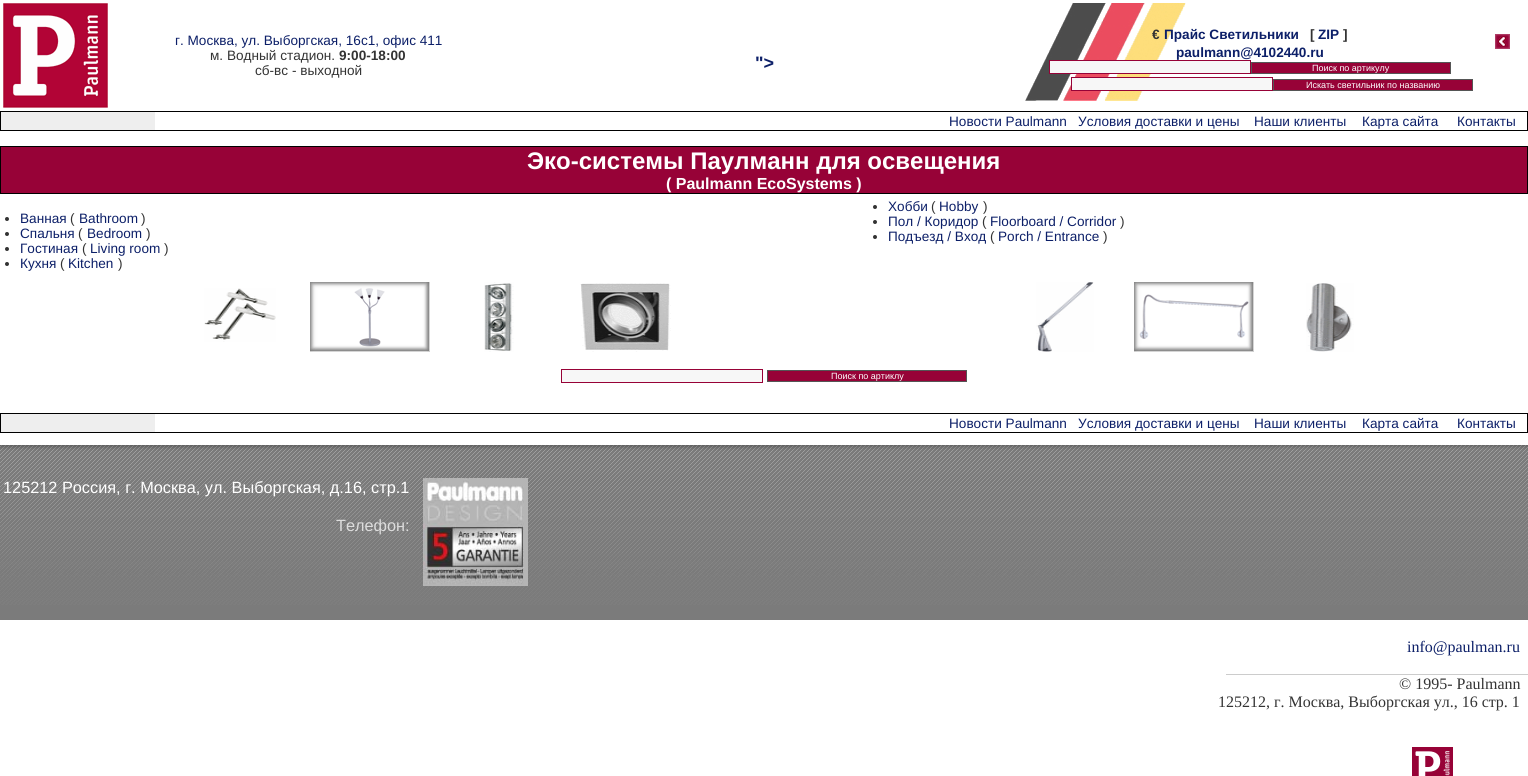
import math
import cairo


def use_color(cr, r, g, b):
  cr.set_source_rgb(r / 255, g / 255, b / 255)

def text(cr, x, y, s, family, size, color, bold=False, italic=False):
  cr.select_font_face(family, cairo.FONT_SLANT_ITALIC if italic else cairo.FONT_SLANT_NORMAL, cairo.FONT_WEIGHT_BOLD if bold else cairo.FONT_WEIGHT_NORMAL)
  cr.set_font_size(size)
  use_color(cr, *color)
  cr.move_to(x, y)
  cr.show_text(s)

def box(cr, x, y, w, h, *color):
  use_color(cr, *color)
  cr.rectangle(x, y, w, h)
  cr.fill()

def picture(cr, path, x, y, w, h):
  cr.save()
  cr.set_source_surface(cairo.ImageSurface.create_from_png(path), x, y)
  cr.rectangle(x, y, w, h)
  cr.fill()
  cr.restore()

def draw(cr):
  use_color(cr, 255, 255, 255)
  cr.paint()
  picture(cr, "img_01.png", 3, 3, 105, 105)
  picture(cr, "img_02.png", 1025, 3, 161, 98)
  picture(cr, "img_03.png", 1495, 34, 15, 15)
  use_color(cr, 247, 247, 247)
  cr.rectangle(1049.5, 60.5, 201, 13)
  cr.fill_preserve()
  use_color(cr, 151, 2, 55)
  cr.set_line_width(1)
  cr.stroke()
  cr.rectangle(1251.5, 62.5, 199, 11)
  cr.fill_preserve()
  use_color(cr, 85, 85, 85)
  cr.stroke()
  use_color(cr, 247, 247, 247)
  cr.rectangle(1071.5, 77.5, 201, 13)
  cr.fill_preserve()
  use_color(cr, 151, 2, 55)
  cr.stroke()
  cr.rectangle(1273.5, 79.5, 199, 11)
  cr.fill_preserve()
  use_color(cr, 85, 85, 85)
  cr.stroke()
  box(cr, 0, 111, 1528, 20, 0, 0, 0)
  box(cr, 1, 112, 154, 18, 238, 238, 238)
  box(cr, 155, 112, 1372, 18, 255, 255, 255)
  use_color(cr, 151, 2, 55)
  cr.rectangle(0.5, 146.5, 1527, 47)
  cr.fill_preserve()
  use_color(cr, 0, 0, 0)
  cr.stroke()
  use_color(cr, 51, 51, 51)
  cr.arc(7, 219, 2, 0, 2 * math.pi)
  cr.fill()
  cr.arc(7, 234, 2, 0, 2 * math.pi)
  cr.fill()
  cr.arc(7, 249, 2, 0, 2 * math.pi)
  cr.fill()
  cr.arc(7, 264, 2, 0, 2 * math.pi)
  cr.fill()
  cr.arc(875, 207, 2, 0, 2 * math.pi)
  cr.fill()
  cr.arc(875, 222, 2, 0, 2 * math.pi)
  cr.fill()
  cr.arc(875, 237, 2, 0, 2 * math.pi)
  cr.fill()
  picture(cr, "img_04.png", 204, 288, 72, 54)
  picture(cr, "img_05.png", 310, 282, 120, 70)
  picture(cr, "img_06.png", 484, 282, 30, 70)
  picture(cr, "img_07.png", 580, 283, 91, 69)
  picture(cr, "img_08.png", 1036, 282, 58, 70)
  picture(cr, "img_09.png", 1134, 282, 120, 70)
  picture(cr, "img_10.png", 1306, 283, 48, 69)
  use_color(cr, 247, 247, 247)
  cr.rectangle(561.5, 369.5, 201, 13)
  cr.fill_preserve()
  use_color(cr, 151, 2, 55)
  cr.stroke()
  cr.rectangle(767.5, 370.5, 199, 11)
  cr.fill_preserve()
  use_color(cr, 85, 85, 85)
  cr.stroke()
  box(cr, 0, 413, 1528, 20, 0, 0, 0)
  box(cr, 1, 414, 154, 18, 238, 238, 238)
  box(cr, 155, 414, 1372, 18, 255, 255, 255)
  picture(cr, "img_11.png", 0, 445, 1528, 175)
  picture(cr, "img_12.png", 423, 478, 105, 108)
  box(cr, 1226, 674, 302, 1, 204, 204, 204)
  picture(cr, "img_13.png", 1412, 747, 41, 29)
  text(cr, 175, 45, "г. Москва, ул. Выборгская, 16с1, офис 411", "Liberation Sans", 13.6, (12, 31, 104))
  text(cr, 210, 60, "м. Водный стадион.", "Liberation Sans", 13.6, (51, 51, 51))
  text(cr, 339, 60, "9:00-18:00", "Liberation Sans", 13.6, (51, 51, 51), bold=True)
  text(cr, 255, 75, "сб-вс - выходной", "Liberation Sans", 13.6, (51, 51, 51))
  text(cr, 755, 69, "\">", "Liberation Sans", 18, (12, 31, 104), bold=True)
  text(cr, 1152, 39, "€", "Liberation Sans", 13.6, (51, 51, 51), bold=True)
  text(cr, 1164, 39, "Прайс Светильники", "Liberation Sans", 13.6, (12, 31, 104), bold=True)
  text(cr, 1310, 39, "[", "Liberation Sans", 13.6, (51, 51, 51), bold=True)
  text(cr, 1318, 39, "ZIP", "Liberation Sans", 13.6, (12, 31, 104), bold=True)
  text(cr, 1343, 39, "]", "Liberation Sans", 13.6, (51, 51, 51), bold=True)
  text(cr, 1176, 57, "paulmann@4102440.ru", "Liberation Sans", 13.6, (12, 31, 104), bold=True)
  text(cr, 1312, 71, "Поиск по артикулу", "Liberation Sans", 9, (255, 255, 255))
  text(cr, 1306, 88, "Искать светильник по названию", "Liberation Sans", 9, (255, 255, 255))
  text(cr, 949, 126, "Новости Paulmann", "Liberation Sans", 13.6, (12, 31, 104))
  text(cr, 1078, 126, "Условия доставки и цены", "Liberation Sans", 13.6, (12, 31, 104))
  text(cr, 1254, 126, "Наши клиенты", "Liberation Sans", 13.6, (12, 31, 104))
  text(cr, 1362, 126, "Карта сайта", "Liberation Sans", 13.6, (12, 31, 104))
  text(cr, 1457, 126, "Контакты", "Liberation Sans", 13.6, (12, 31, 104))
  text(cr, 527, 169, "Эко-системы Паулманн для освещения", "Liberation Sans", 24, (255, 255, 255), bold=True)
  text(cr, 666, 189, "( Paulmann EcoSystems )", "Liberation Sans", 16, (255, 255, 255), bold=True)
  text(cr, 20, 223, "Ванная", "Liberation Sans", 13.6, (12, 31, 104))
  text(cr, 70, 223, "(", "Liberation Sans", 13.6, (51, 51, 51))
  text(cr, 79, 223, "Bathroom", "Liberation Sans", 13.6, (12, 31, 104))
  text(cr, 141, 223, ")", "Liberation Sans", 13.6, (51, 51, 51))
  text(cr, 20, 238, "Спальня", "Liberation Sans", 13.6, (12, 31, 104))
  text(cr, 78, 238, "(", "Liberation Sans", 13.6, (51, 51, 51))
  text(cr, 87, 238, "Bedroom", "Liberation Sans", 13.6, (12, 31, 104))
  text(cr, 146, 238, ")", "Liberation Sans", 13.6, (51, 51, 51))
  text(cr, 20, 253, "Гостиная", "Liberation Sans", 13.6, (12, 31, 104))
  text(cr, 82, 253, "(", "Liberation Sans", 13.6, (51, 51, 51))
  text(cr, 90, 253, "Living room", "Liberation Sans", 13.6, (12, 31, 104))
  text(cr, 164, 253, ")", "Liberation Sans", 13.6, (51, 51, 51))
  text(cr, 20, 268, "Кухня", "Liberation Sans", 13.6, (12, 31, 104))
  text(cr, 60, 268, "(", "Liberation Sans", 13.6, (51, 51, 51))
  text(cr, 68, 268, "Kitchen", "Liberation Sans", 13.6, (12, 31, 104))
  text(cr, 118, 268, ")", "Liberation Sans", 13.6, (51, 51, 51))
  text(cr, 888, 211, "Хобби", "Liberation Sans", 13.6, (12, 31, 104))
  text(cr, 931, 211, "(", "Liberation Sans", 13.6, (51, 51, 51))
  text(cr, 939, 211, "Hobby", "Liberation Sans", 13.6, (12, 31, 104))
  text(cr, 983, 211, ")", "Liberation Sans", 13.6, (51, 51, 51))
  text(cr, 888, 226, "Пол / Коридор", "Liberation Sans", 13.6, (12, 31, 104))
  text(cr, 982, 226, "(", "Liberation Sans", 13.6, (51, 51, 51))
  text(cr, 990, 226, "Floorboard / Corridor", "Liberation Sans", 13.6, (12, 31, 104))
  text(cr, 1120, 226, ")", "Liberation Sans", 13.6, (51, 51, 51))
  text(cr, 888, 241, "Подъезд / Вход", "Liberation Sans", 13.6, (12, 31, 104))
  text(cr, 990, 241, "(", "Liberation Sans", 13.6, (51, 51, 51))
  text(cr, 998, 241, "Porch / Entrance", "Liberation Sans", 13.6, (12, 31, 104))
  text(cr, 1103, 241, ")", "Liberation Sans", 13.6, (51, 51, 51))
  text(cr, 831, 379, "Поиск по артиклу", "Liberation Sans", 9, (255, 255, 255))
  text(cr, 949, 428, "Новости Paulmann", "Liberation Sans", 13.6, (12, 31, 104))
  text(cr, 1078, 428, "Условия доставки и цены", "Liberation Sans", 13.6, (12, 31, 104))
  text(cr, 1254, 428, "Наши клиенты", "Liberation Sans", 13.6, (12, 31, 104))
  text(cr, 1362, 428, "Карта сайта", "Liberation Sans", 13.6, (12, 31, 104))
  text(cr, 1457, 428, "Контакты", "Liberation Sans", 13.6, (12, 31, 104))
  text(cr, 3, 493, "125212 Россия, г. Москва, ул. Выборгская, д.16, стр.1", "Liberation Sans", 16.3, (255, 255, 255))
  text(cr, 336, 531, "Телефон:", "Liberation Sans", 16.3, (221, 221, 221))
  text(cr, 1407, 652, "info@paulman.ru", "Liberation Serif", 16, (12, 31, 104))
  text(cr, 1399, 689, "© 1995- Paulmann", "Liberation Serif", 16, (51, 51, 51))
  text(cr, 1218, 707, "125212, г. Москва, Выборгская ул., 16 стр. 1", "Liberation Serif", 16, (51, 51, 51))


surface = cairo.ImageSurface(cairo.FORMAT_RGB24, 1528, 776)
cr = cairo.Context(surface)
options = cairo.FontOptions()
options.set_hint_metrics(cairo.HINT_METRICS_OFF)
options.set_hint_style(cairo.HINT_STYLE_NONE)
cr.set_font_options(options)
cr.set_miter_limit(4)
draw(cr)
surface.write_to_png("out.png")
